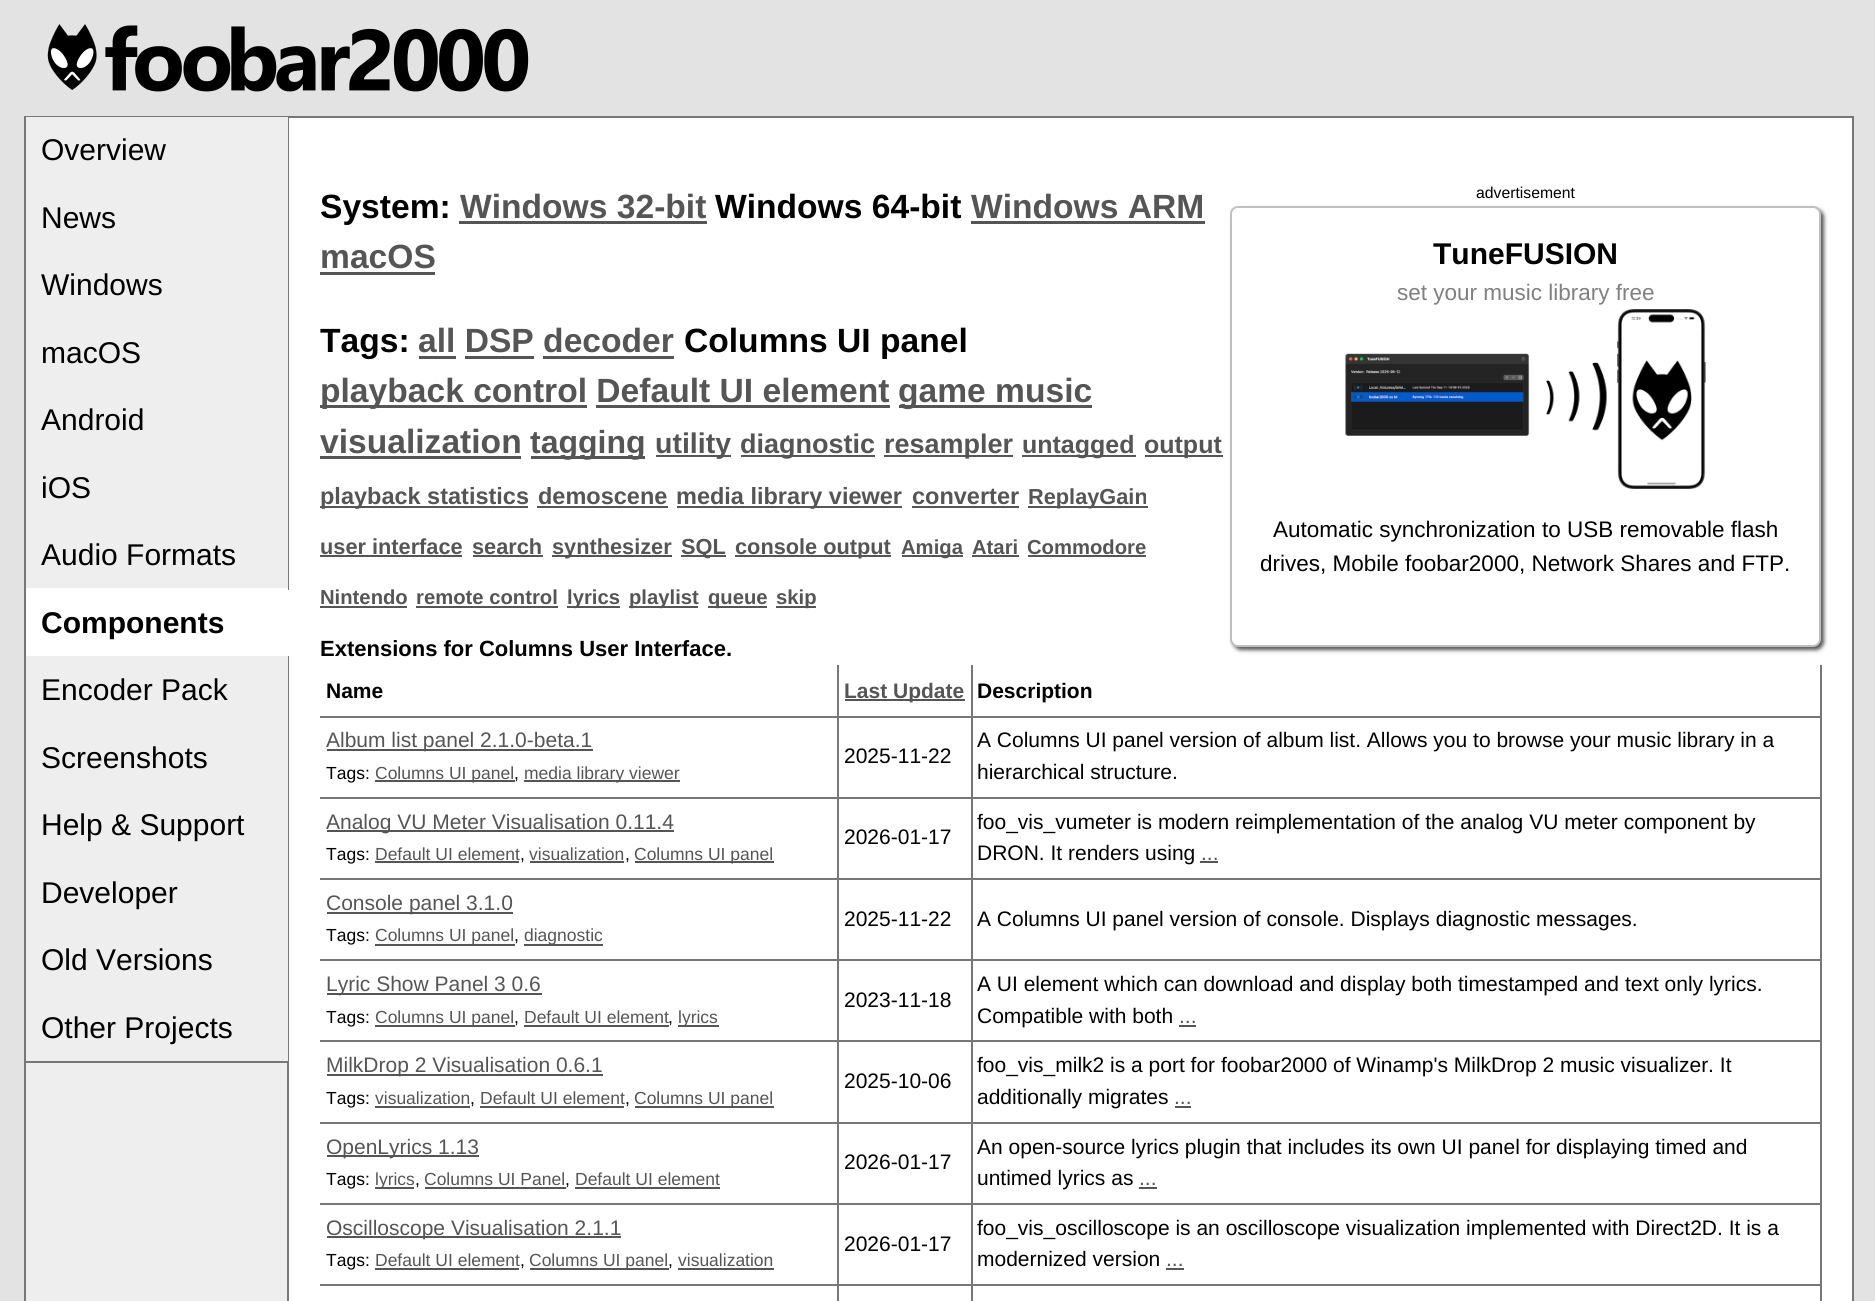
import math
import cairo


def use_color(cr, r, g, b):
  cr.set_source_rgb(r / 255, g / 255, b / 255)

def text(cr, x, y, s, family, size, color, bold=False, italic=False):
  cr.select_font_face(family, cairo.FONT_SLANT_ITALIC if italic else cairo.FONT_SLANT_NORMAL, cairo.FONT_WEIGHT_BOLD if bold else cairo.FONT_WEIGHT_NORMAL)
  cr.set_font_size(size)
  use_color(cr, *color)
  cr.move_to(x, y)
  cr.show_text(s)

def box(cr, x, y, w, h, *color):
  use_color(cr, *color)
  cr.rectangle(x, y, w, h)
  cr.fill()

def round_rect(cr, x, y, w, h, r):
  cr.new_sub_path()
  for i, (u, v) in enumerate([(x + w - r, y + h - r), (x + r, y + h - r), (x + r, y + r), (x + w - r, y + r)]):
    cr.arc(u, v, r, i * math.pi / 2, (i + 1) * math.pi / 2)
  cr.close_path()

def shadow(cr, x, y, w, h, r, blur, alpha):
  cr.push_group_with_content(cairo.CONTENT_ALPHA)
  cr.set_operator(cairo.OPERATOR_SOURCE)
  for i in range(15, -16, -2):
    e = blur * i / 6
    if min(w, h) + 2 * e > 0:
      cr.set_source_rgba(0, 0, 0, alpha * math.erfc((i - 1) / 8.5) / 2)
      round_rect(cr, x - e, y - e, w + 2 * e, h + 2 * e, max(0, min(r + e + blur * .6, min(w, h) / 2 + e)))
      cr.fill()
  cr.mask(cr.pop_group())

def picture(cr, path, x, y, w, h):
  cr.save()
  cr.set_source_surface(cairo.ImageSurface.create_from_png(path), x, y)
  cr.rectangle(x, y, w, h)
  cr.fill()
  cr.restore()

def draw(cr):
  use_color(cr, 227, 227, 227)
  cr.paint()
  picture(cr, "img_01.png", 47, 24, 482, 68)
  box(cr, 288, 118, 1564, 1183, 255, 255, 255)
  cr.rectangle(25, 117, 1828, 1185)
  use_color(cr, 119, 119, 119)
  cr.stroke()
  box(cr, 26, 117, 262, 471, 238, 238, 238)
  box(cr, 288, 117, 1, 473, 119, 119, 119)
  box(cr, 26, 588, 262, 68, 255, 255, 255)
  box(cr, 26, 656, 262, 405, 238, 238, 238)
  box(cr, 287, 1061, 2, 240, 119, 119, 119)
  box(cr, 288, 656, 1, 406, 119, 119, 119)
  box(cr, 26, 1061, 262, 2, 119, 119, 119)
  box(cr, 26, 1063, 261, 238, 238, 238, 238)
  box(cr, 459, 221, 248, 3, 85, 85, 85)
  box(cr, 971, 221, 234, 3, 85, 85, 85)
  box(cr, 320, 272, 115, 3, 85, 85, 85)
  use_color(cr, 85, 85, 85)
  shadow(cr, 1233, 209, 591, 441, 8, 2, 1)
  use_color(cr, 255, 255, 255)
  round_rect(cr, 1231, 207, 589, 439, 7)
  cr.fill_preserve()
  use_color(cr, 192, 192, 192)
  cr.stroke()
  picture(cr, "img_02.png", 1345, 309, 361, 180)
  box(cr, 419, 356, 37, 3, 85, 85, 85)
  box(cr, 465, 356, 69, 3, 85, 85, 85)
  box(cr, 543, 356, 131, 3, 85, 85, 85)
  box(cr, 320, 405, 267, 3, 85, 85, 85)
  box(cr, 899, 405, 193, 3, 85, 85, 85)
  box(cr, 596, 405, 294, 3, 85, 85, 85)
  box(cr, 320, 456, 201, 3, 85, 85, 85)
  box(cr, 531, 456, 114, 3, 85, 85, 85)
  box(cr, 656, 455, 75, 2, 85, 85, 85)
  box(cr, 741, 455, 134, 2, 85, 85, 85)
  box(cr, 884, 455, 129, 2, 85, 85, 85)
  box(cr, 1022, 455, 114, 2, 85, 85, 85)
  box(cr, 1145, 455, 78, 2, 85, 85, 85)
  box(cr, 320, 506, 208, 2, 85, 85, 85)
  box(cr, 537, 506, 131, 2, 85, 85, 85)
  box(cr, 677, 506, 225, 2, 85, 85, 85)
  box(cr, 912, 506, 107, 2, 85, 85, 85)
  box(cr, 1028, 506, 120, 2, 85, 85, 85)
  box(cr, 320, 555, 142, 2, 85, 85, 85)
  box(cr, 473, 555, 70, 2, 85, 85, 85)
  box(cr, 552, 555, 120, 2, 85, 85, 85)
  box(cr, 681, 555, 45, 2, 85, 85, 85)
  box(cr, 735, 555, 156, 2, 85, 85, 85)
  box(cr, 902, 555, 61, 2, 85, 85, 85)
  box(cr, 972, 555, 47, 2, 85, 85, 85)
  box(cr, 1028, 555, 118, 2, 85, 85, 85)
  box(cr, 320, 606, 87, 2, 85, 85, 85)
  box(cr, 416, 606, 142, 2, 85, 85, 85)
  box(cr, 567, 606, 53, 2, 85, 85, 85)
  box(cr, 629, 606, 69, 2, 85, 85, 85)
  box(cr, 708, 606, 59, 2, 85, 85, 85)
  box(cr, 776, 606, 40, 2, 85, 85, 85)
  box(cr, 1820, 665, 2, 636, 119, 119, 119)
  box(cr, 971, 1284, 2, 17, 119, 119, 119)
  box(cr, 971, 1284, 850, 2, 119, 119, 119)
  box(cr, 971, 1203, 2, 83, 119, 119, 119)
  box(cr, 971, 1203, 850, 2, 119, 119, 119)
  box(cr, 971, 1122, 2, 83, 119, 119, 119)
  box(cr, 971, 1122, 850, 2, 119, 119, 119)
  box(cr, 971, 1040, 2, 84, 119, 119, 119)
  box(cr, 971, 1040, 850, 2, 119, 119, 119)
  box(cr, 971, 959, 2, 82, 119, 119, 119)
  box(cr, 971, 959, 850, 2, 119, 119, 119)
  box(cr, 971, 878, 2, 82, 119, 119, 119)
  box(cr, 971, 878, 850, 2, 119, 119, 119)
  box(cr, 971, 797, 2, 82, 119, 119, 119)
  box(cr, 971, 797, 850, 2, 119, 119, 119)
  box(cr, 971, 716, 2, 82, 119, 119, 119)
  box(cr, 971, 716, 850, 2, 119, 119, 119)
  box(cr, 971, 665, 2, 52, 119, 119, 119)
  box(cr, 837, 1284, 2, 17, 119, 119, 119)
  box(cr, 837, 1284, 135, 2, 119, 119, 119)
  box(cr, 837, 1203, 2, 83, 119, 119, 119)
  box(cr, 837, 1203, 135, 2, 119, 119, 119)
  box(cr, 837, 1122, 2, 83, 119, 119, 119)
  box(cr, 837, 1122, 135, 2, 119, 119, 119)
  box(cr, 837, 1040, 2, 84, 119, 119, 119)
  box(cr, 837, 1040, 135, 2, 119, 119, 119)
  box(cr, 837, 959, 2, 82, 119, 119, 119)
  box(cr, 837, 959, 135, 2, 119, 119, 119)
  box(cr, 837, 878, 2, 82, 119, 119, 119)
  box(cr, 837, 878, 135, 2, 119, 119, 119)
  box(cr, 837, 797, 2, 82, 119, 119, 119)
  box(cr, 837, 797, 135, 2, 119, 119, 119)
  box(cr, 837, 716, 2, 82, 119, 119, 119)
  box(cr, 837, 716, 135, 2, 119, 119, 119)
  box(cr, 837, 665, 2, 52, 119, 119, 119)
  box(cr, 320, 716, 519, 2, 119, 119, 119)
  box(cr, 845, 699, 120, 2, 85, 85, 85)
  box(cr, 320, 797, 519, 2, 119, 119, 119)
  box(cr, 327, 749, 266, 2, 85, 85, 85)
  box(cr, 375, 780, 140, 2, 85, 85, 85)
  box(cr, 524, 780, 156, 2, 85, 85, 85)
  box(cr, 320, 878, 519, 2, 119, 119, 119)
  box(cr, 327, 830, 347, 2, 85, 85, 85)
  box(cr, 375, 861, 144, 2, 85, 85, 85)
  box(cr, 530, 861, 94, 2, 85, 85, 85)
  box(cr, 635, 861, 139, 2, 85, 85, 85)
  box(cr, 1200, 861, 18, 2, 85, 85, 85)
  box(cr, 320, 959, 519, 2, 119, 119, 119)
  box(cr, 327, 912, 186, 2, 85, 85, 85)
  box(cr, 375, 944, 140, 2, 85, 85, 85)
  box(cr, 524, 944, 79, 2, 85, 85, 85)
  box(cr, 320, 1040, 519, 2, 119, 119, 119)
  box(cr, 327, 993, 215, 2, 85, 85, 85)
  box(cr, 375, 1025, 140, 2, 85, 85, 85)
  box(cr, 524, 1025, 145, 2, 85, 85, 85)
  box(cr, 678, 1025, 41, 2, 85, 85, 85)
  box(cr, 1179, 1025, 17, 2, 85, 85, 85)
  box(cr, 320, 1122, 519, 2, 119, 119, 119)
  box(cr, 327, 1074, 276, 2, 85, 85, 85)
  box(cr, 375, 1106, 95, 2, 85, 85, 85)
  box(cr, 480, 1106, 144, 2, 85, 85, 85)
  box(cr, 635, 1106, 139, 2, 85, 85, 85)
  box(cr, 1175, 1106, 16, 2, 85, 85, 85)
  box(cr, 320, 1203, 519, 2, 119, 119, 119)
  box(cr, 327, 1155, 152, 2, 85, 85, 85)
  box(cr, 375, 1187, 39, 2, 85, 85, 85)
  box(cr, 425, 1187, 141, 2, 85, 85, 85)
  box(cr, 575, 1187, 145, 2, 85, 85, 85)
  box(cr, 1139, 1187, 18, 2, 85, 85, 85)
  box(cr, 320, 1284, 519, 2, 119, 119, 119)
  box(cr, 327, 1236, 294, 2, 85, 85, 85)
  box(cr, 375, 1268, 144, 2, 85, 85, 85)
  box(cr, 530, 1268, 139, 2, 85, 85, 85)
  box(cr, 678, 1268, 96, 2, 85, 85, 85)
  box(cr, 1166, 1268, 18, 2, 85, 85, 85)
  text(cr, 41, 160, "Overview", "Liberation Sans", 30, (0, 0, 0))
  text(cr, 41, 228, "News", "Liberation Sans", 30, (0, 0, 0))
  text(cr, 41, 295, "Windows", "Liberation Sans", 30, (0, 0, 0))
  text(cr, 41, 363, "macOS", "Liberation Sans", 30, (0, 0, 0))
  text(cr, 41, 430, "Android", "Liberation Sans", 30, (0, 0, 0))
  text(cr, 41, 498, "iOS", "Liberation Sans", 30, (0, 0, 0))
  text(cr, 41, 565, "Audio Formats", "Liberation Sans", 30, (0, 0, 0))
  text(cr, 41, 633, "Components", "Liberation Sans", 30, (0, 0, 0), bold=True)
  text(cr, 41, 700, "Encoder Pack", "Liberation Sans", 30, (0, 0, 0))
  text(cr, 41, 768, "Screenshots", "Liberation Sans", 30, (0, 0, 0))
  text(cr, 41, 835, "Help & Support", "Liberation Sans", 30, (0, 0, 0))
  text(cr, 41, 903, "Developer", "Liberation Sans", 30, (0, 0, 0))
  text(cr, 41, 970, "Old Versions", "Liberation Sans", 30, (0, 0, 0))
  text(cr, 41, 1038, "Other Projects", "Liberation Sans", 30, (0, 0, 0))
  text(cr, 320, 218, "System:", "Liberation Sans", 33.6, (0, 0, 0), bold=True)
  text(cr, 460, 218, "Windows 32-bit", "Liberation Sans", 33.6, (85, 85, 85), bold=True)
  text(cr, 715, 218, "Windows 64-bit", "Liberation Sans", 33.6, (0, 0, 0), bold=True)
  text(cr, 971, 218, "Windows ARM", "Liberation Sans", 33.6, (85, 85, 85), bold=True)
  text(cr, 320, 268, "macOS", "Liberation Sans", 33.6, (85, 85, 85), bold=True)
  text(cr, 1476, 198, "advertisement", "Liberation Sans", 15.75, (0, 0, 0))
  text(cr, 1433, 264, "TuneFUSION", "Liberation Sans", 30, (0, 0, 0), bold=True)
  text(cr, 1397, 300, "set your music library free", "Liberation Sans", 22.5, (128, 128, 128))
  text(cr, 1273, 537, "Automatic synchronization to USB removable flash", "Liberation Sans", 22.5, (0, 0, 0))
  text(cr, 1260, 571, "drives, Mobile foobar2000, Network Shares and FTP.", "Liberation Sans", 22.5, (0, 0, 0))
  text(cr, 320, 352, "Tags:", "Liberation Sans", 33.6, (0, 0, 0), bold=True)
  text(cr, 418, 352, "all DSP decoder", "Liberation Sans", 33.6, (85, 85, 85), bold=True)
  text(cr, 684, 352, "Columns UI panel", "Liberation Sans", 33.6, (0, 0, 0), bold=True)
  text(cr, 320, 402, "playback control Default UI element", "Liberation Sans", 33.6, (85, 85, 85), bold=True)
  text(cr, 898, 402, "game music", "Liberation Sans", 33.6, (85, 85, 85), bold=True)
  text(cr, 320, 453, "visualization", "Liberation Sans", 33.6, (85, 85, 85), bold=True)
  text(cr, 530, 453, "tagging", "Liberation Sans", 32, (85, 85, 85), bold=True)
  text(cr, 655, 453, "utility", "Liberation Sans", 28.5, (85, 85, 85), bold=True)
  text(cr, 740, 453, "diagnostic", "Liberation Sans", 27, (85, 85, 85), bold=True)
  text(cr, 884, 453, "resampler", "Liberation Sans", 27, (85, 85, 85), bold=True)
  text(cr, 1022, 453, "untagged", "Liberation Sans", 25, (85, 85, 85), bold=True)
  text(cr, 1144, 453, "output", "Liberation Sans", 25, (85, 85, 85), bold=True)
  text(cr, 320, 504, "playback statistics", "Liberation Sans", 23.5, (85, 85, 85), bold=True)
  text(cr, 538, 504, "demoscene", "Liberation Sans", 23.5, (85, 85, 85), bold=True)
  text(cr, 676, 504, "media library viewer", "Liberation Sans", 23.5, (85, 85, 85), bold=True)
  text(cr, 912, 504, "converter", "Liberation Sans", 23.5, (85, 85, 85), bold=True)
  text(cr, 1028, 504, "ReplayGain", "Liberation Sans", 21.75, (85, 85, 85), bold=True)
  text(cr, 320, 554, "user interface", "Liberation Sans", 21.75, (85, 85, 85), bold=True)
  text(cr, 472, 554, "search", "Liberation Sans", 21.75, (85, 85, 85), bold=True)
  text(cr, 552, 554, "synthesizer", "Liberation Sans", 21.75, (85, 85, 85), bold=True)
  text(cr, 681, 554, "SQL", "Liberation Sans", 21.75, (85, 85, 85), bold=True)
  text(cr, 735, 554, "console output", "Liberation Sans", 21.75, (85, 85, 85), bold=True)
  text(cr, 901, 554, "Amiga", "Liberation Sans", 20.25, (85, 85, 85), bold=True)
  text(cr, 972, 554, "Atari", "Liberation Sans", 20.25, (85, 85, 85), bold=True)
  text(cr, 1027, 554, "Commodore", "Liberation Sans", 20.25, (85, 85, 85), bold=True)
  text(cr, 320, 604, "Nintendo", "Liberation Sans", 20.25, (85, 85, 85), bold=True)
  text(cr, 416, 604, "remote control", "Liberation Sans", 20.25, (85, 85, 85), bold=True)
  text(cr, 567, 604, "lyrics", "Liberation Sans", 20.25, (85, 85, 85), bold=True)
  text(cr, 629, 604, "playlist", "Liberation Sans", 20.25, (85, 85, 85), bold=True)
  text(cr, 708, 604, "queue", "Liberation Sans", 20.25, (85, 85, 85), bold=True)
  text(cr, 776, 604, "skip", "Liberation Sans", 20.25, (85, 85, 85), bold=True)
  text(cr, 320, 656, "Extensions for Columns User Interface.", "Liberation Sans", 22, (0, 0, 0), bold=True)
  text(cr, 326, 698, "Name", "Liberation Sans", 21, (0, 0, 0), bold=True)
  text(cr, 844, 698, "Last Update", "Liberation Sans", 21, (85, 85, 85), bold=True)
  text(cr, 977, 698, "Description", "Liberation Sans", 21, (0, 0, 0), bold=True)
  text(cr, 326, 747, "Album list panel 2.1.0-beta.1", "Liberation Sans", 21, (85, 85, 85))
  text(cr, 326, 779, "Tags:", "Liberation Sans", 17.5, (0, 0, 0))
  text(cr, 375, 779, "Columns UI panel", "Liberation Sans", 17.5, (85, 85, 85))
  text(cr, 514, 779, ",", "Liberation Sans", 17.5, (0, 0, 0))
  text(cr, 524, 779, "media library viewer", "Liberation Sans", 17.5, (85, 85, 85))
  text(cr, 844, 763, "2025-11-22", "Liberation Sans", 21, (0, 0, 0))
  text(cr, 977, 747, "A Columns UI panel version of album list. Allows you to browse your music library in a", "Liberation Sans", 21, (0, 0, 0))
  text(cr, 977, 779, "hierarchical structure.", "Liberation Sans", 21, (0, 0, 0))
  text(cr, 326, 829, "Analog VU Meter Visualisation 0.11.4", "Liberation Sans", 21, (85, 85, 85))
  text(cr, 326, 860, "Tags:", "Liberation Sans", 17.5, (0, 0, 0))
  text(cr, 375, 860, "Default UI element", "Liberation Sans", 17.5, (85, 85, 85))
  text(cr, 520, 860, ",", "Liberation Sans", 17.5, (0, 0, 0))
  text(cr, 529, 860, "visualization", "Liberation Sans", 17.5, (85, 85, 85))
  text(cr, 625, 860, ",", "Liberation Sans", 17.5, (0, 0, 0))
  text(cr, 634, 860, "Columns UI panel", "Liberation Sans", 17.5, (85, 85, 85))
  text(cr, 844, 844, "2026-01-17", "Liberation Sans", 21, (0, 0, 0))
  text(cr, 977, 829, "foo_vis_vumeter is modern reimplementation of the analog VU meter component by", "Liberation Sans", 21, (0, 0, 0))
  text(cr, 977, 860, "DRON. It renders using", "Liberation Sans", 21, (0, 0, 0))
  text(cr, 1201, 860, "...", "Liberation Sans", 21, (85, 85, 85))
  text(cr, 326, 910, "Console panel 3.1.0", "Liberation Sans", 21, (85, 85, 85))
  text(cr, 326, 941, "Tags:", "Liberation Sans", 17.5, (0, 0, 0))
  text(cr, 375, 941, "Columns UI panel", "Liberation Sans", 17.5, (85, 85, 85))
  text(cr, 514, 941, ",", "Liberation Sans", 17.5, (0, 0, 0))
  text(cr, 524, 941, "diagnostic", "Liberation Sans", 17.5, (85, 85, 85))
  text(cr, 844, 926, "2025-11-22", "Liberation Sans", 21, (0, 0, 0))
  text(cr, 977, 926, "A Columns UI panel version of console. Displays diagnostic messages.", "Liberation Sans", 21, (0, 0, 0))
  text(cr, 326, 991, "Lyric Show Panel 3 0.6", "Liberation Sans", 21, (85, 85, 85))
  text(cr, 326, 1023, "Tags:", "Liberation Sans", 17.5, (0, 0, 0))
  text(cr, 375, 1023, "Columns UI panel", "Liberation Sans", 17.5, (85, 85, 85))
  text(cr, 514, 1023, ",", "Liberation Sans", 17.5, (0, 0, 0))
  text(cr, 524, 1023, "Default UI element", "Liberation Sans", 17.5, (85, 85, 85))
  text(cr, 668, 1023, ",", "Liberation Sans", 17.5, (0, 0, 0))
  text(cr, 678, 1023, "lyrics", "Liberation Sans", 17.5, (85, 85, 85))
  text(cr, 844, 1007, "2023-11-18", "Liberation Sans", 21, (0, 0, 0))
  text(cr, 977, 991, "A UI element which can download and display both timestamped and text only lyrics.", "Liberation Sans", 21, (0, 0, 0))
  text(cr, 977, 1023, "Compatible with both", "Liberation Sans", 21, (0, 0, 0))
  text(cr, 1179, 1023, "...", "Liberation Sans", 21, (85, 85, 85))
  text(cr, 326, 1072, "MilkDrop 2 Visualisation 0.6.1", "Liberation Sans", 21, (85, 85, 85))
  text(cr, 326, 1104, "Tags:", "Liberation Sans", 17.5, (0, 0, 0))
  text(cr, 375, 1104, "visualization", "Liberation Sans", 17.5, (85, 85, 85))
  text(cr, 470, 1104, ",", "Liberation Sans", 17.5, (0, 0, 0))
  text(cr, 480, 1104, "Default UI element", "Liberation Sans", 17.5, (85, 85, 85))
  text(cr, 625, 1104, ",", "Liberation Sans", 17.5, (0, 0, 0))
  text(cr, 634, 1104, "Columns UI panel", "Liberation Sans", 17.5, (85, 85, 85))
  text(cr, 844, 1088, "2025-10-06", "Liberation Sans", 21, (0, 0, 0))
  text(cr, 977, 1072, "foo_vis_milk2 is a port for foobar2000 of Winamp's MilkDrop 2 music visualizer. It", "Liberation Sans", 21, (0, 0, 0))
  text(cr, 977, 1104, "additionally migrates", "Liberation Sans", 21, (0, 0, 0))
  text(cr, 1174, 1104, "...", "Liberation Sans", 21, (85, 85, 85))
  text(cr, 326, 1154, "OpenLyrics 1.13", "Liberation Sans", 21, (85, 85, 85))
  text(cr, 326, 1185, "Tags:", "Liberation Sans", 17.5, (0, 0, 0))
  text(cr, 375, 1185, "lyrics", "Liberation Sans", 17.5, (85, 85, 85))
  text(cr, 415, 1185, ",", "Liberation Sans", 17.5, (0, 0, 0))
  text(cr, 424, 1185, "Columns UI Panel", "Liberation Sans", 17.5, (85, 85, 85))
  text(cr, 565, 1185, ",", "Liberation Sans", 17.5, (0, 0, 0))
  text(cr, 575, 1185, "Default UI element", "Liberation Sans", 17.5, (85, 85, 85))
  text(cr, 844, 1169, "2026-01-17", "Liberation Sans", 21, (0, 0, 0))
  text(cr, 977, 1154, "An open-source lyrics plugin that includes its own UI panel for displaying timed and", "Liberation Sans", 21, (0, 0, 0))
  text(cr, 977, 1185, "untimed lyrics as", "Liberation Sans", 21, (0, 0, 0))
  text(cr, 1139, 1185, "...", "Liberation Sans", 21, (85, 85, 85))
  text(cr, 326, 1235, "Oscilloscope Visualisation 2.1.1", "Liberation Sans", 21, (85, 85, 85))
  text(cr, 326, 1266, "Tags:", "Liberation Sans", 17.5, (0, 0, 0))
  text(cr, 375, 1266, "Default UI element", "Liberation Sans", 17.5, (85, 85, 85))
  text(cr, 520, 1266, ",", "Liberation Sans", 17.5, (0, 0, 0))
  text(cr, 529, 1266, "Columns UI panel", "Liberation Sans", 17.5, (85, 85, 85))
  text(cr, 668, 1266, ",", "Liberation Sans", 17.5, (0, 0, 0))
  text(cr, 678, 1266, "visualization", "Liberation Sans", 17.5, (85, 85, 85))
  text(cr, 844, 1251, "2026-01-17", "Liberation Sans", 21, (0, 0, 0))
  text(cr, 977, 1235, "foo_vis_oscilloscope is an oscilloscope visualization implemented with Direct2D. It is a", "Liberation Sans", 21, (0, 0, 0))
  text(cr, 977, 1266, "modernized version", "Liberation Sans", 21, (0, 0, 0))
  text(cr, 1166, 1266, "...", "Liberation Sans", 21, (85, 85, 85))


surface = cairo.ImageSurface(cairo.FORMAT_RGB24, 1875, 1301)
cr = cairo.Context(surface)
options = cairo.FontOptions()
options.set_hint_metrics(cairo.HINT_METRICS_OFF)
options.set_hint_style(cairo.HINT_STYLE_NONE)
cr.set_font_options(options)
cr.set_miter_limit(4)
draw(cr)
surface.write_to_png("out.png")
